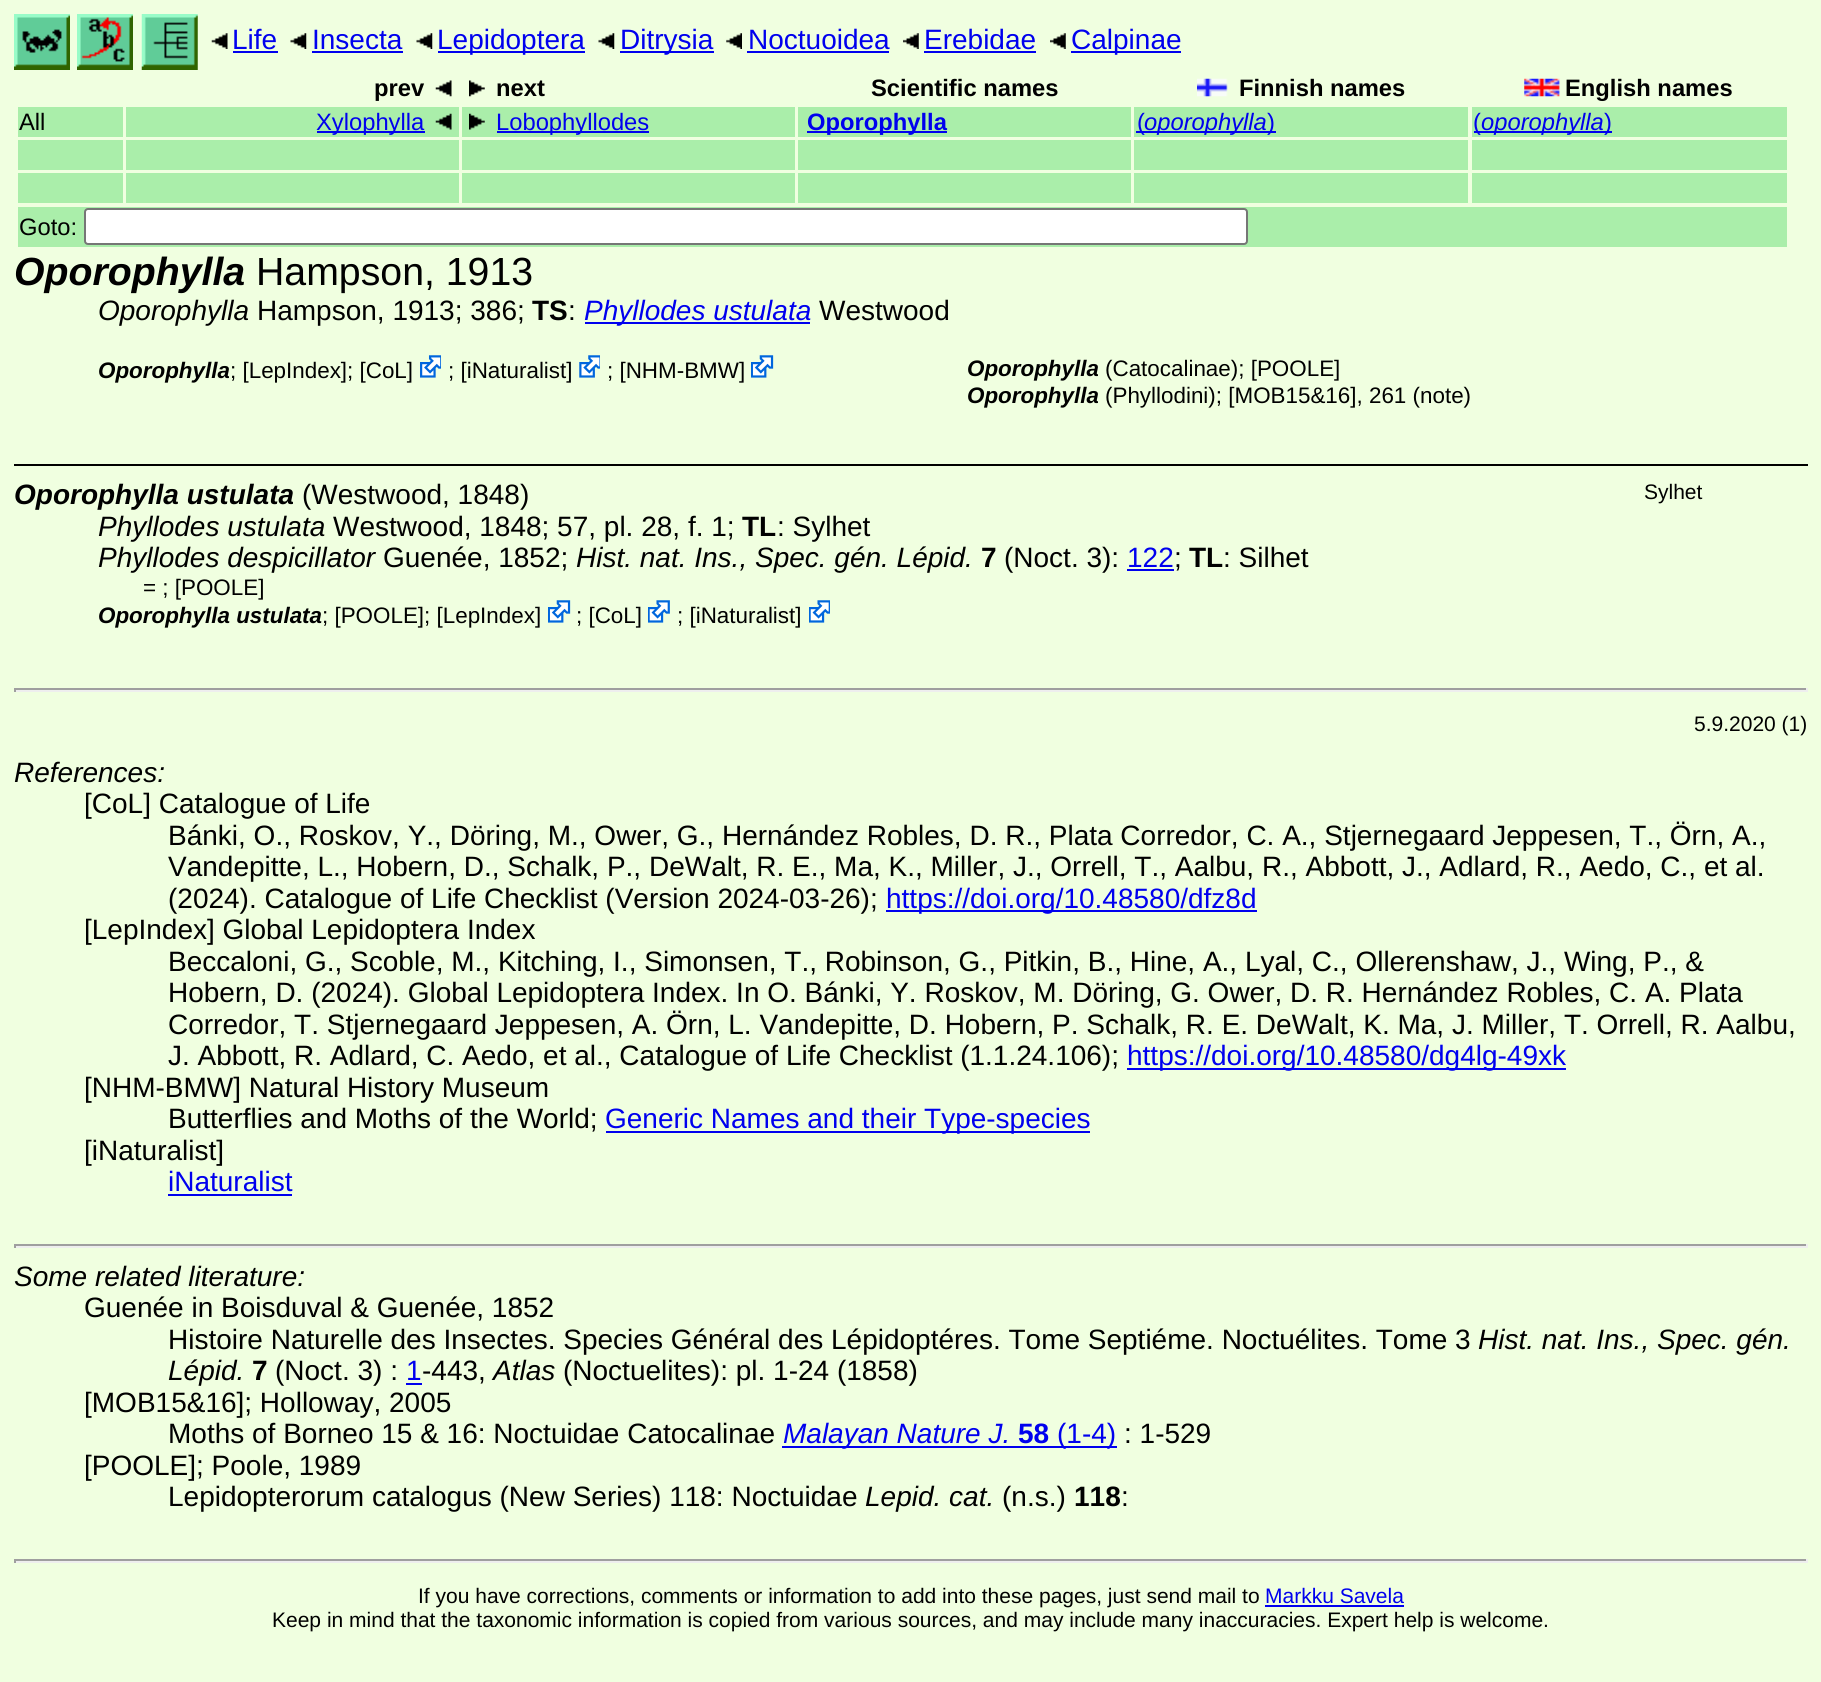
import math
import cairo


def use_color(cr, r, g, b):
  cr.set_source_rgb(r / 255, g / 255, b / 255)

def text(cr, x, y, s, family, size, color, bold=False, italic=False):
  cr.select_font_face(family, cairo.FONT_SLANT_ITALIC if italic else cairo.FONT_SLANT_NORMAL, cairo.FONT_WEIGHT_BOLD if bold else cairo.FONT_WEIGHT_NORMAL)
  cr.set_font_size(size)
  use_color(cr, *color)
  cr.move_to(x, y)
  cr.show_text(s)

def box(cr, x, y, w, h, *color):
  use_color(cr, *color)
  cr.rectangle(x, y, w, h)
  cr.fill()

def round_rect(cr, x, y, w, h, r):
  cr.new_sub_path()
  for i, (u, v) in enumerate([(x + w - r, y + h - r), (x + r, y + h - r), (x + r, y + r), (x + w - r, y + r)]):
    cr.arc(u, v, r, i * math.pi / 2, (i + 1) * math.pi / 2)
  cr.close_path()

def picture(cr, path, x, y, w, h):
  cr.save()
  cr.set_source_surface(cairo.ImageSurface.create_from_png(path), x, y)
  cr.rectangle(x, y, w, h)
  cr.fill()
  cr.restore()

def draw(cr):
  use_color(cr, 240, 255, 224)
  cr.paint()
  picture(cr, "img_01.png", 14, 14, 56, 56)
  picture(cr, "img_02.png", 77, 14, 56, 56)
  picture(cr, "img_03.png", 141, 14, 57, 56)
  picture(cr, "img_04.png", 211, 33, 17, 16)
  box(cr, 233, 51, 45, 2, 0, 0, 238)
  picture(cr, "img_05.png", 290, 33, 17, 16)
  box(cr, 312, 51, 91, 2, 0, 0, 238)
  picture(cr, "img_06.png", 416, 33, 17, 16)
  box(cr, 438, 51, 147, 2, 0, 0, 238)
  picture(cr, "img_07.png", 598, 33, 17, 16)
  box(cr, 620, 51, 94, 2, 0, 0, 238)
  picture(cr, "img_08.png", 726, 33, 16, 16)
  box(cr, 747, 51, 142, 2, 0, 0, 238)
  picture(cr, "img_09.png", 903, 33, 16, 16)
  box(cr, 924, 51, 112, 2, 0, 0, 238)
  picture(cr, "img_10.png", 1050, 33, 16, 16)
  box(cr, 1071, 51, 110, 2, 0, 0, 238)
  picture(cr, "img_11.png", 435, 80, 17, 17)
  picture(cr, "img_12.png", 469, 80, 16, 17)
  picture(cr, "img_13.png", 1197, 78, 31, 19)
  picture(cr, "img_14.png", 1524, 78, 36, 19)
  box(cr, 18, 107, 105, 30, 170, 238, 170)
  box(cr, 126, 107, 333, 30, 170, 238, 170)
  box(cr, 317, 131, 108, 2, 0, 0, 238)
  picture(cr, "img_15.png", 435, 113, 17, 17)
  box(cr, 462, 107, 333, 30, 170, 238, 170)
  picture(cr, "img_16.png", 469, 113, 16, 17)
  box(cr, 497, 131, 152, 2, 0, 0, 238)
  box(cr, 798, 107, 333, 30, 170, 238, 170)
  box(cr, 807, 131, 140, 2, 0, 0, 238)
  box(cr, 1134, 107, 334, 30, 170, 238, 170)
  box(cr, 1136, 131, 140, 2, 0, 0, 238)
  box(cr, 1472, 107, 315, 30, 170, 238, 170)
  box(cr, 1474, 131, 138, 2, 0, 0, 238)
  box(cr, 18, 140, 105, 30, 170, 238, 170)
  box(cr, 126, 140, 333, 30, 170, 238, 170)
  box(cr, 462, 140, 333, 30, 170, 238, 170)
  box(cr, 798, 140, 333, 30, 170, 238, 170)
  box(cr, 1134, 140, 334, 30, 170, 238, 170)
  box(cr, 1472, 140, 315, 30, 170, 238, 170)
  box(cr, 18, 173, 105, 30, 170, 238, 170)
  box(cr, 126, 173, 333, 30, 170, 238, 170)
  box(cr, 462, 173, 333, 30, 170, 238, 170)
  box(cr, 798, 173, 333, 30, 170, 238, 170)
  box(cr, 1134, 173, 334, 30, 170, 238, 170)
  box(cr, 1472, 173, 315, 30, 170, 238, 170)
  box(cr, 18, 207, 1769, 40, 170, 238, 170)
  use_color(cr, 255, 255, 255)
  round_rect(cr, 85, 209, 1162, 35, 3)
  cr.fill_preserve()
  use_color(cr, 118, 118, 118)
  cr.stroke()
  box(cr, 585, 322, 225, 2, 0, 0, 238)
  picture(cr, "img_17.png", 420, 355, 21, 23)
  picture(cr, "img_18.png", 579, 355, 21, 23)
  picture(cr, "img_19.png", 751, 355, 23, 23)
  box(cr, 14, 464, 1794, 2, 0, 0, 0)
  box(cr, 1127, 569, 47, 2, 0, 0, 238)
  picture(cr, "img_19.png", 548, 600, 23, 23)
  picture(cr, "img_20.png", 648, 600, 22, 23)
  picture(cr, "img_21.png", 809, 600, 21, 23)
  box(cr, 14, 688, 1794, 2, 159, 159, 159)
  box(cr, 1806, 688, 2, 4, 238, 238, 238)
  box(cr, 14, 690, 1794, 2, 238, 238, 238)
  box(cr, 14, 688, 2, 4, 159, 159, 159)
  box(cr, 886, 910, 371, 2, 0, 0, 238)
  box(cr, 1127, 1068, 439, 2, 0, 0, 238)
  box(cr, 606, 1131, 484, 2, 0, 0, 238)
  box(cr, 168, 1194, 124, 2, 0, 0, 238)
  box(cr, 14, 1244, 1794, 2, 159, 159, 159)
  box(cr, 1806, 1244, 2, 4, 238, 238, 238)
  box(cr, 14, 1246, 1794, 2, 238, 238, 238)
  box(cr, 14, 1244, 2, 4, 159, 159, 159)
  box(cr, 406, 1383, 16, 2, 0, 0, 238)
  box(cr, 782, 1446, 335, 2, 0, 0, 238)
  box(cr, 14, 1559, 1794, 2, 159, 159, 159)
  box(cr, 1806, 1559, 2, 4, 238, 238, 238)
  box(cr, 14, 1561, 1794, 2, 238, 238, 238)
  box(cr, 14, 1559, 2, 4, 159, 159, 159)
  box(cr, 1265, 1605, 139, 2, 0, 0, 238)
  text(cr, 232, 49, "Life", "Liberation Sans", 28, (0, 0, 238))
  text(cr, 312, 49, "Insecta", "Liberation Sans", 28, (0, 0, 238))
  text(cr, 437, 49, "Lepidoptera", "Liberation Sans", 28, (0, 0, 238))
  text(cr, 620, 49, "Ditrysia", "Liberation Sans", 28, (0, 0, 238))
  text(cr, 748, 49, "Noctuoidea", "Liberation Sans", 28, (0, 0, 238))
  text(cr, 924, 49, "Erebidae", "Liberation Sans", 28, (0, 0, 238))
  text(cr, 1071, 49, "Calpinae", "Liberation Sans", 28, (0, 0, 238))
  text(cr, 374, 96, "prev", "Liberation Sans", 23.75, (0, 0, 0), bold=True)
  text(cr, 496, 96, "next", "Liberation Sans", 23.75, (0, 0, 0), bold=True)
  text(cr, 871, 96, "Scientific names", "Liberation Sans", 23.75, (0, 0, 0), bold=True)
  text(cr, 1239, 96, "Finnish names", "Liberation Sans", 23.75, (0, 0, 0), bold=True)
  text(cr, 1565, 96, "English names", "Liberation Sans", 23.75, (0, 0, 0), bold=True)
  text(cr, 19, 130, "All", "Liberation Sans", 23.75, (0, 0, 0))
  text(cr, 316, 130, "Xylophylla", "Liberation Sans", 23.75, (0, 0, 238))
  text(cr, 496, 130, "Lobophyllodes", "Liberation Sans", 23.75, (0, 0, 238))
  text(cr, 807, 130, "Oporophylla", "Liberation Sans", 23.75, (0, 0, 238), bold=True)
  text(cr, 1137, 130, "(", "Liberation Sans", 23.75, (0, 0, 238))
  text(cr, 1144, 130, "oporophylla", "Liberation Sans", 23.75, (0, 0, 238), italic=True)
  text(cr, 1267, 130, ")", "Liberation Sans", 23.75, (0, 0, 238))
  text(cr, 1473, 130, "(", "Liberation Sans", 23.75, (0, 0, 238))
  text(cr, 1481, 130, "oporophylla", "Liberation Sans", 23.75, (0, 0, 238), italic=True)
  text(cr, 1604, 130, ")", "Liberation Sans", 23.75, (0, 0, 238))
  text(cr, 19, 235, "Goto:", "Liberation Sans", 23.75, (0, 0, 0))
  text(cr, 14, 285, "Oporophylla", "Liberation Sans", 39.25, (0, 0, 0), bold=True, italic=True)
  text(cr, 256, 285, "Hampson, 1913", "Liberation Sans", 39.25, (0, 0, 0))
  text(cr, 98, 320, "Oporophylla", "Liberation Sans", 28, (0, 0, 0), italic=True)
  text(cr, 257, 320, "Hampson, 1913; 386;", "Liberation Sans", 28, (0, 0, 0))
  text(cr, 532, 320, "TS", "Liberation Sans", 28, (0, 0, 0), bold=True)
  text(cr, 568, 320, ":", "Liberation Sans", 28, (0, 0, 0))
  text(cr, 584, 320, "Phyllodes ustulata", "Liberation Sans", 28, (0, 0, 238), italic=True)
  text(cr, 819, 320, "Westwood", "Liberation Sans", 28, (0, 0, 0))
  text(cr, 98, 378, "Oporophylla", "Liberation Sans", 22.4, (0, 0, 0), bold=True, italic=True)
  text(cr, 230, 378, "; [LepIndex]; [CoL]", "Liberation Sans", 22.4, (0, 0, 0))
  text(cr, 448, 378, "; [iNaturalist]", "Liberation Sans", 22.4, (0, 0, 0))
  text(cr, 607, 378, "; [NHM-BMW]", "Liberation Sans", 22.4, (0, 0, 0))
  text(cr, 967, 376, "Oporophylla", "Liberation Sans", 22.4, (0, 0, 0), bold=True, italic=True)
  text(cr, 1105, 376, "(Catocalinae); [POOLE]", "Liberation Sans", 22.4, (0, 0, 0))
  text(cr, 967, 403, "Oporophylla", "Liberation Sans", 22.4, (0, 0, 0), bold=True, italic=True)
  text(cr, 1105, 403, "(Phyllodini); [MOB15&16], 261 (note)", "Liberation Sans", 22.4, (0, 0, 0))
  text(cr, 14, 504, "Oporophylla ustulata", "Liberation Sans", 28, (0, 0, 0), bold=True, italic=True)
  text(cr, 302, 504, "(Westwood, 1848)", "Liberation Sans", 28, (0, 0, 0))
  text(cr, 1644, 499, "Sylhet", "Liberation Sans", 21, (0, 0, 0))
  text(cr, 98, 536, "Phyllodes ustulata", "Liberation Sans", 28, (0, 0, 0), italic=True)
  text(cr, 333, 536, "Westwood, 1848; 57, pl. 28, f. 1;", "Liberation Sans", 28, (0, 0, 0))
  text(cr, 742, 536, "TL", "Liberation Sans", 28, (0, 0, 0), bold=True)
  text(cr, 777, 536, ": Sylhet", "Liberation Sans", 28, (0, 0, 0))
  text(cr, 98, 567, "Phyllodes despicillator", "Liberation Sans", 28, (0, 0, 0), italic=True)
  text(cr, 383, 567, "Guenée, 1852;", "Liberation Sans", 28, (0, 0, 0))
  text(cr, 576, 567, "Hist. nat. Ins., Spec. gén. Lépid.", "Liberation Sans", 28, (0, 0, 0), italic=True)
  text(cr, 981, 567, "7", "Liberation Sans", 28, (0, 0, 0), bold=True)
  text(cr, 1004, 567, "(Noct. 3):", "Liberation Sans", 28, (0, 0, 0))
  text(cr, 1127, 567, "122", "Liberation Sans", 28, (0, 0, 238))
  text(cr, 1174, 567, ";", "Liberation Sans", 28, (0, 0, 0))
  text(cr, 1189, 567, "TL", "Liberation Sans", 28, (0, 0, 0), bold=True)
  text(cr, 1223, 567, ": Silhet", "Liberation Sans", 28, (0, 0, 0))
  text(cr, 143, 595, "= ; [POOLE]", "Liberation Sans", 22.4, (0, 0, 0))
  text(cr, 98, 623, "Oporophylla ustulata", "Liberation Sans", 22.4, (0, 0, 0), bold=True, italic=True)
  text(cr, 322, 623, "; [POOLE]; [LepIndex]", "Liberation Sans", 22.4, (0, 0, 0))
  text(cr, 576, 623, "; [CoL]", "Liberation Sans", 22.4, (0, 0, 0))
  text(cr, 677, 623, "; [iNaturalist]", "Liberation Sans", 22.4, (0, 0, 0))
  text(cr, 1694, 731, "5.9.2020 (1)", "Liberation Sans", 21, (0, 0, 0))
  text(cr, 14, 782, "References:", "Liberation Sans", 28, (0, 0, 0), italic=True)
  text(cr, 84, 813, "[CoL] Catalogue of Life", "Liberation Sans", 28, (0, 0, 0))
  text(cr, 168, 845, "Bánki, O., Roskov, Y., Döring, M., Ower, G., Hernández Robles, D. R., Plata Corredor, C. A., Stjernegaard Jeppesen, T., Örn, A.,", "Liberation Sans", 28, (0, 0, 0))
  text(cr, 168, 876, "Vandepitte, L., Hobern, D., Schalk, P., DeWalt, R. E., Ma, K., Miller, J., Orrell, T., Aalbu, R., Abbott, J., Adlard, R., Aedo, C., et al.", "Liberation Sans", 28, (0, 0, 0))
  text(cr, 168, 908, "(2024). Catalogue of Life Checklist (Version 2024-03-26);", "Liberation Sans", 28, (0, 0, 0))
  text(cr, 886, 908, "https://doi.org/10.48580/dfz8d", "Liberation Sans", 28, (0, 0, 238))
  text(cr, 84, 939, "[LepIndex] Global Lepidoptera Index", "Liberation Sans", 28, (0, 0, 0))
  text(cr, 168, 971, "Beccaloni, G., Scoble, M., Kitching, I., Simonsen, T., Robinson, G., Pitkin, B., Hine, A., Lyal, C., Ollerenshaw, J., Wing, P., &", "Liberation Sans", 28, (0, 0, 0))
  text(cr, 168, 1002, "Hobern, D. (2024). Global Lepidoptera Index. In O. Bánki, Y. Roskov, M. Döring, G. Ower, D. R. Hernández Robles, C. A. Plata", "Liberation Sans", 28, (0, 0, 0))
  text(cr, 168, 1034, "Corredor, T. Stjernegaard Jeppesen, A. Örn, L. Vandepitte, D. Hobern, P. Schalk, R. E. DeWalt, K. Ma, J. Miller, T. Orrell, R. Aalbu,", "Liberation Sans", 28, (0, 0, 0))
  text(cr, 168, 1065, "J. Abbott, R. Adlard, C. Aedo, et al., Catalogue of Life Checklist (1.1.24.106);", "Liberation Sans", 28, (0, 0, 0))
  text(cr, 1127, 1065, "https://doi.org/10.48580/dg4lg-49xk", "Liberation Sans", 28, (0, 0, 238))
  text(cr, 84, 1097, "[NHM-BMW] Natural History Museum", "Liberation Sans", 28, (0, 0, 0))
  text(cr, 168, 1128, "Butterflies and Moths of the World;", "Liberation Sans", 28, (0, 0, 0))
  text(cr, 605, 1128, "Generic Names and their Type-species", "Liberation Sans", 28, (0, 0, 238))
  text(cr, 84, 1160, "[iNaturalist]", "Liberation Sans", 28, (0, 0, 0))
  text(cr, 168, 1191, "iNaturalist", "Liberation Sans", 28, (0, 0, 238))
  text(cr, 14, 1286, "Some related literature:", "Liberation Sans", 28, (0, 0, 0), italic=True)
  text(cr, 84, 1317, "Guenée in Boisduval & Guenée, 1852", "Liberation Sans", 28, (0, 0, 0))
  text(cr, 168, 1349, "Histoire Naturelle des Insectes. Species Général des Lépidoptéres. Tome Septiéme. Noctuélites. Tome 3", "Liberation Sans", 28, (0, 0, 0))
  text(cr, 1478, 1349, "Hist. nat. Ins., Spec. gén.", "Liberation Sans", 28, (0, 0, 0), italic=True)
  text(cr, 168, 1380, "Lépid.", "Liberation Sans", 28, (0, 0, 0), italic=True)
  text(cr, 252, 1380, "7", "Liberation Sans", 28, (0, 0, 0), bold=True)
  text(cr, 275, 1380, "(Noct. 3) :", "Liberation Sans", 28, (0, 0, 0))
  text(cr, 406, 1380, "1", "Liberation Sans", 28, (0, 0, 238))
  text(cr, 422, 1380, "-443,", "Liberation Sans", 28, (0, 0, 0))
  text(cr, 493, 1380, "Atlas", "Liberation Sans", 28, (0, 0, 0), italic=True)
  text(cr, 563, 1380, "(Noctuelites): pl. 1-24 (1858)", "Liberation Sans", 28, (0, 0, 0))
  text(cr, 84, 1412, "[MOB15&16]; Holloway, 2005", "Liberation Sans", 28, (0, 0, 0))
  text(cr, 168, 1443, "Moths of Borneo 15 & 16: Noctuidae Catocalinae", "Liberation Sans", 28, (0, 0, 0))
  text(cr, 783, 1443, "Malayan Nature J.", "Liberation Sans", 28, (0, 0, 238), italic=True)
  text(cr, 1018, 1443, "58", "Liberation Sans", 28, (0, 0, 238), bold=True)
  text(cr, 1057, 1443, "(1-4)", "Liberation Sans", 28, (0, 0, 238))
  text(cr, 1124, 1443, ": 1-529", "Liberation Sans", 28, (0, 0, 0))
  text(cr, 84, 1475, "[POOLE]; Poole, 1989", "Liberation Sans", 28, (0, 0, 0))
  text(cr, 168, 1506, "Lepidopterorum catalogus (New Series) 118: Noctuidae", "Liberation Sans", 28, (0, 0, 0))
  text(cr, 865, 1506, "Lepid. cat.", "Liberation Sans", 28, (0, 0, 0), italic=True)
  text(cr, 1002, 1506, "(n.s.)", "Liberation Sans", 28, (0, 0, 0))
  text(cr, 1074, 1506, "118", "Liberation Sans", 28, (0, 0, 0), bold=True)
  text(cr, 1121, 1506, ":", "Liberation Sans", 28, (0, 0, 0))
  text(cr, 418, 1603, "If you have corrections, comments or information to add into these pages, just send mail to", "Liberation Sans", 21, (0, 0, 0))
  text(cr, 1265, 1603, "Markku Savela", "Liberation Sans", 21, (0, 0, 238))
  text(cr, 272, 1627, "Keep in mind that the taxonomic information is copied from various sources, and may include many inaccuracies. Expert help is welcome.", "Liberation Sans", 21, (0, 0, 0))


surface = cairo.ImageSurface(cairo.FORMAT_RGB24, 1821, 1682)
cr = cairo.Context(surface)
options = cairo.FontOptions()
options.set_hint_metrics(cairo.HINT_METRICS_OFF)
options.set_hint_style(cairo.HINT_STYLE_NONE)
cr.set_font_options(options)
cr.set_miter_limit(4)
draw(cr)
surface.write_to_png("out.png")
